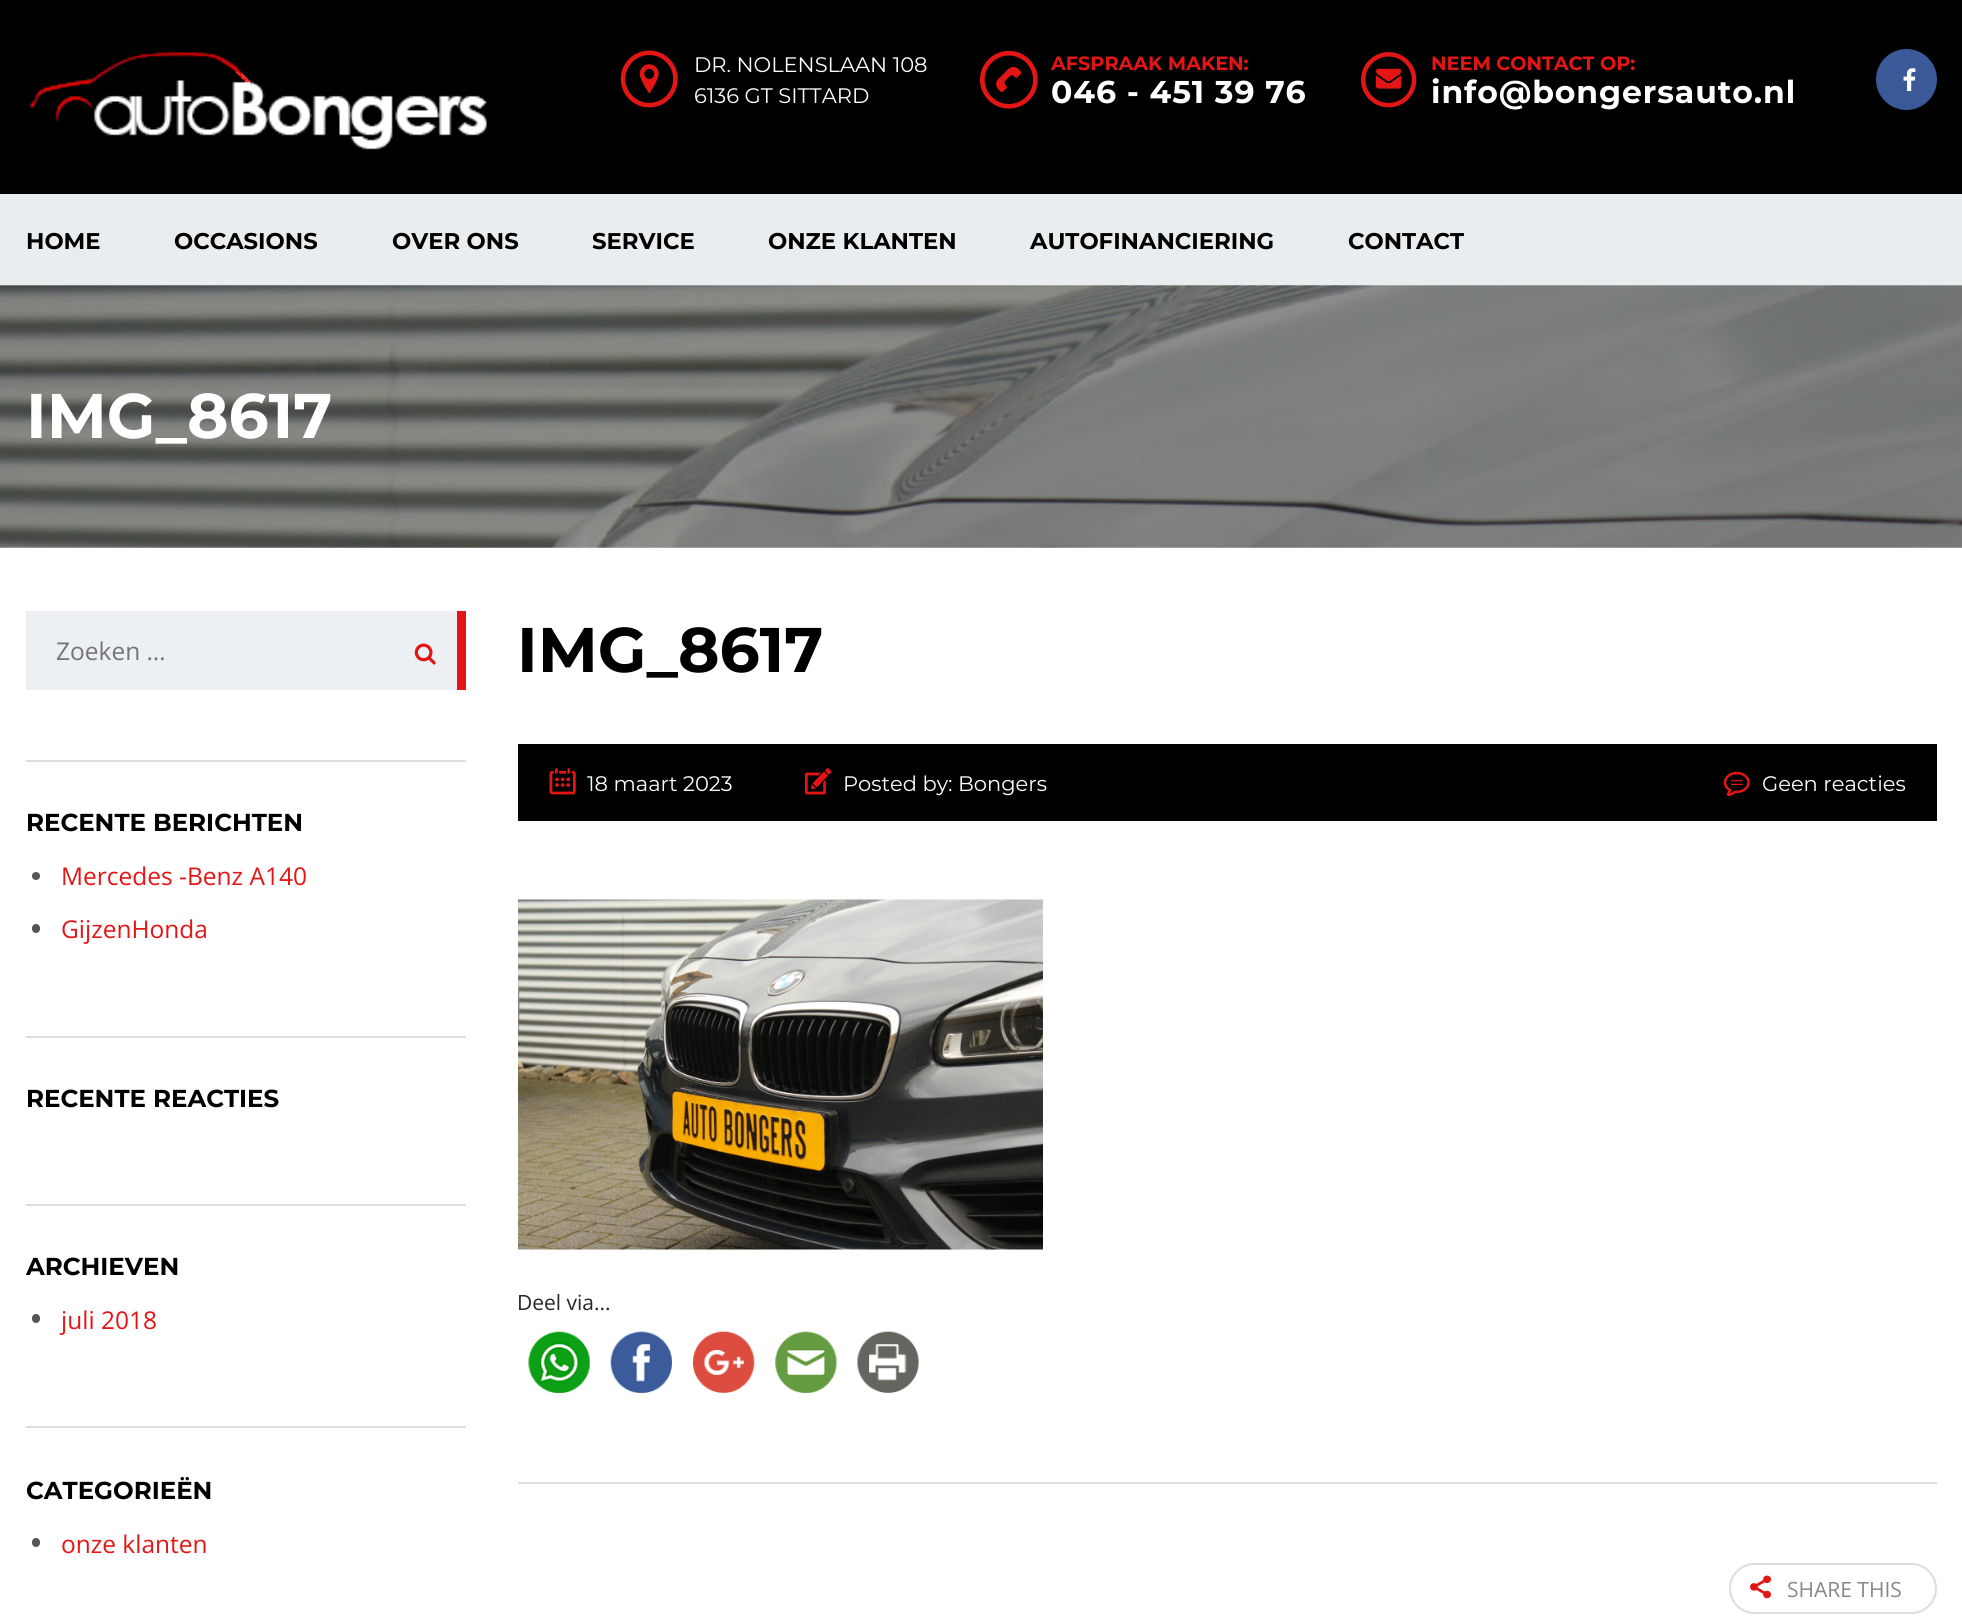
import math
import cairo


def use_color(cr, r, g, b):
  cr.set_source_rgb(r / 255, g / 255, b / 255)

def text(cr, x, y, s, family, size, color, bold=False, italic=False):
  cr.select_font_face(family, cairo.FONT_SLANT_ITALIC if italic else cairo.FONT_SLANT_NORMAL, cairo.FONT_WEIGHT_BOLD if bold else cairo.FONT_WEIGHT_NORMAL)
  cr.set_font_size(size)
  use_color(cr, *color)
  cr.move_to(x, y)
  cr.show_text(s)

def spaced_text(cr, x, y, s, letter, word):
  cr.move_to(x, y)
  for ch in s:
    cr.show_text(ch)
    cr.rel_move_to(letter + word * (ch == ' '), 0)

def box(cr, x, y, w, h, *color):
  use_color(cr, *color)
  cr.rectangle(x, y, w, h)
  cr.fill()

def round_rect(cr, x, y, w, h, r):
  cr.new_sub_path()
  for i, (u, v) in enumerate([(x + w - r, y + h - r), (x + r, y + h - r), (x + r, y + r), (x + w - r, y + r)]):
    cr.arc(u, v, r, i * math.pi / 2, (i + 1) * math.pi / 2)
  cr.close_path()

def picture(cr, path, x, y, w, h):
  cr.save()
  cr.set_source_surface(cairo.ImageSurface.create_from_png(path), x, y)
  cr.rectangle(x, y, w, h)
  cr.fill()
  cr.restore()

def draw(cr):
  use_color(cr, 255, 255, 255)
  cr.paint()
  box(cr, 0, 0, 1962, 194, 0, 0, 0)
  picture(cr, "img_01.png", 29, 52, 458, 98)
  picture(cr, "img_02.png", 620, 50, 58, 58)
  picture(cr, "img_03.png", 980, 50, 58, 59)
  picture(cr, "img_04.png", 1361, 52, 56, 56)
  use_color(cr, 59, 89, 152)
  cr.arc(1906.5, 79.5, 30.5, 0, 2 * math.pi)
  cr.fill()
  picture(cr, "img_05.png", 1903, 68, 13, 23)
  box(cr, 0, 194, 1962, 91, 234, 237, 240)
  picture(cr, "img_06.png", 0, 285, 1962, 263)
  box(cr, 26, 760, 440, 2, 221, 221, 221)
  box(cr, 26, 611, 431, 79, 236, 239, 243)
  picture(cr, "img_07.png", 414, 643, 22, 22)
  box(cr, 457, 611, 9, 79, 228, 21, 21)
  box(cr, 26, 1036, 440, 2, 221, 221, 221)
  use_color(cr, 85, 85, 85)
  cr.arc(36, 876, 4, 0, 2 * math.pi)
  cr.fill()
  round_rect(cr, 32, 924, 8, 9, 4)
  cr.fill()
  box(cr, 26, 1204, 440, 2, 221, 221, 221)
  box(cr, 26, 1426, 440, 2, 221, 221, 221)
  use_color(cr, 85, 85, 85)
  round_rect(cr, 32, 1314, 8, 9, 4)
  cr.fill()
  round_rect(cr, 32, 1538, 8, 9, 4)
  cr.fill()
  box(cr, 518, 744, 1419, 77, 0, 0, 0)
  picture(cr, "img_08.png", 549, 768, 27, 27)
  picture(cr, "img_09.png", 805, 768, 27, 27)
  picture(cr, "img_10.png", 1723, 771, 27, 25)
  box(cr, 518, 1482, 1419, 2, 221, 221, 221)
  picture(cr, "img_11.png", 518, 899, 525, 351)
  picture(cr, "img_12.png", 528, 1331, 62, 62)
  picture(cr, "img_13.png", 610, 1331, 62, 62)
  picture(cr, "img_14.png", 693, 1331, 62, 62)
  picture(cr, "img_15.png", 775, 1331, 62, 62)
  picture(cr, "img_16.png", 857, 1331, 62, 62)
  round_rect(cr, 1730, 1564, 206, 49, 24.5)
  cr.stroke()
  picture(cr, "img_17.png", 1750, 1575, 21, 24)
  text(cr, 694, 72, "DR. NOLENSLAAN 108", "Montserrat", 21, (255, 255, 255))
  text(cr, 694, 103, "6136 GT SITTARD", "Montserrat", 21, (255, 255, 255))
  text(cr, 1051, 70, "AFSPRAAK MAKEN:", "Montserrat", 19.25, (228, 21, 21), bold=True)
  cr.set_font_size(31.5)
  use_color(cr, 255, 255, 255)
  spaced_text(cr, 1051, 103, "046 - 451 39 76", 0.9, 0)
  text(cr, 1431, 70, "NEEM CONTACT OP:", "Montserrat", 19.25, (228, 21, 21), bold=True)
  cr.set_font_size(31.5)
  use_color(cr, 255, 255, 255)
  spaced_text(cr, 1431, 103, "info@bongersauto.nl", 0.9, 0)
  text(cr, 26, 249, "HOME", "Montserrat", 22.75, (0, 0, 0), bold=True)
  text(cr, 174, 249, "OCCASIONS", "Montserrat", 22.75, (0, 0, 0), bold=True)
  text(cr, 392, 249, "OVER ONS", "Montserrat", 22.75, (0, 0, 0), bold=True)
  text(cr, 592, 249, "SERVICE", "Montserrat", 22.75, (0, 0, 0), bold=True)
  text(cr, 768, 249, "ONZE KLANTEN", "Montserrat", 22.75, (0, 0, 0), bold=True)
  text(cr, 1030, 249, "AUTOFINANCIERING", "Montserrat", 22.75, (0, 0, 0), bold=True)
  text(cr, 1348, 249, "CONTACT", "Montserrat", 22.75, (0, 0, 0), bold=True)
  text(cr, 26, 438, "IMG_8617", "Montserrat", 63, (255, 255, 255), bold=True)
  text(cr, 56, 660, "Zoeken …", "Open Sans", 24.5, (117, 117, 117))
  text(cr, 26, 831, "RECENTE BERICHTEN", "Montserrat", 24.5, (0, 0, 0), bold=True)
  text(cr, 61, 885, "Mercedes -Benz A140", "Open Sans", 24.5, (228, 21, 21))
  text(cr, 61, 938, "GijzenHonda", "Open Sans", 24.5, (228, 21, 21))
  text(cr, 26, 1107, "RECENTE REACTIES", "Montserrat", 24.5, (0, 0, 0), bold=True)
  text(cr, 26, 1275, "ARCHIEVEN", "Montserrat", 24.5, (0, 0, 0), bold=True)
  text(cr, 61, 1329, "juli 2018", "Open Sans", 24.5, (228, 21, 21))
  text(cr, 26, 1499, "CATEGORIEËN", "Montserrat", 24.5, (0, 0, 0), bold=True)
  text(cr, 61, 1553, "onze klanten", "Open Sans", 24.5, (228, 21, 21))
  text(cr, 517, 672, "IMG_8617", "Montserrat", 63, (0, 0, 0), bold=True)
  text(cr, 587, 791, "18 maart 2023", "Montserrat", 21, (255, 255, 255))
  text(cr, 843, 791, "Posted by: Bongers", "Montserrat", 21, (255, 255, 255))
  text(cr, 1762, 791, "Geen reacties", "Montserrat", 21, (255, 255, 255))
  text(cr, 517, 1310, "Deel via...", "Open Sans", 21, (39, 39, 39))
  text(cr, 1787, 1597, "SHARE THIS", "Open Sans", 21, (136, 136, 136))


surface = cairo.ImageSurface(cairo.FORMAT_RGB24, 1962, 1618)
cr = cairo.Context(surface)
options = cairo.FontOptions()
options.set_hint_metrics(cairo.HINT_METRICS_OFF)
options.set_hint_style(cairo.HINT_STYLE_NONE)
cr.set_font_options(options)
cr.set_miter_limit(4)
draw(cr)
surface.write_to_png("out.png")
